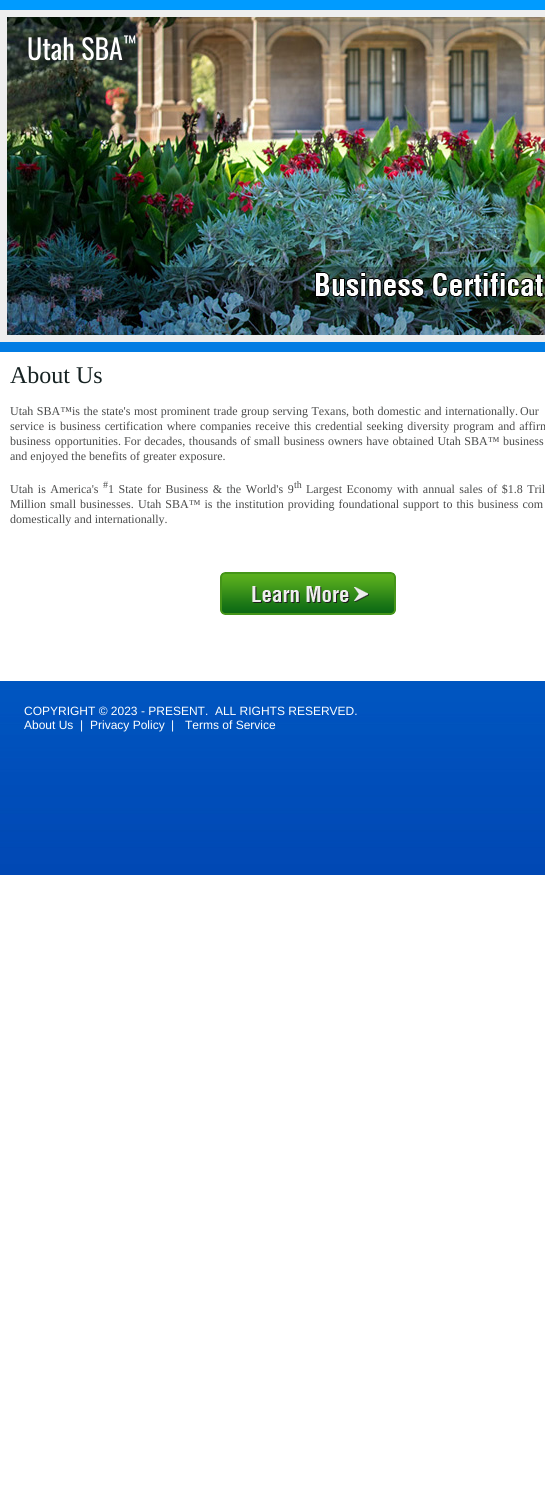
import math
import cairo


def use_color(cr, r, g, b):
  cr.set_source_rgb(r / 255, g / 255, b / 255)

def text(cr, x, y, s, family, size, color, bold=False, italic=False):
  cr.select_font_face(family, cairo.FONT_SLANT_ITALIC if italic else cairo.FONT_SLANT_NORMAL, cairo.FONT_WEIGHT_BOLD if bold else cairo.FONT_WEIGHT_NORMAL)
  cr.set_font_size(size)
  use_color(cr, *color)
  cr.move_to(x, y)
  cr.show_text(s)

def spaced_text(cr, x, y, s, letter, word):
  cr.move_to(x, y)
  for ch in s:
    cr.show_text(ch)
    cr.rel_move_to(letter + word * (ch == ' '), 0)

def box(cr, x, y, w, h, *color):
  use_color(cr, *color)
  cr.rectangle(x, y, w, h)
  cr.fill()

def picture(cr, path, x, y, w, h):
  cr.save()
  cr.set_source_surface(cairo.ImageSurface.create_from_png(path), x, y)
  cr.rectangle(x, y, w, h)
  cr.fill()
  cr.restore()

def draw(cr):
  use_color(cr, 255, 255, 255)
  cr.paint()
  picture(cr, "img_01.png", 0, 0, 545, 875)
  box(cr, 0, 10, 545, 332, 238, 238, 238)
  picture(cr, "img_02.png", 7, 17, 538, 318)
  box(cr, 0, 352, 545, 329, 255, 255, 255)
  picture(cr, "img_03.png", 220, 572, 176, 43)
  text(cr, 27, 60, "Utah SBA", "Oswald", 28, (255, 255, 255))
  text(cr, 123, 50, "™", "Oswald", 18, (255, 255, 255))
  text(cr, 10, 383, "About Us", "Liberation Serif", 24, (22, 34, 34))
  cr.set_font_size(12)
  use_color(cr, 73, 74, 74)
  spaced_text(cr, 10, 415, "Utah SBA™is the state's most prominent trade group serving Texans, both domestic and internationally.", 0, 0.5)
  spaced_text(cr, 520, 415, "Our", 0, 0.5)
  spaced_text(cr, 10, 430, "service is business certification where companies receive this credential seeking diversity program and affirm", 0, 1)
  spaced_text(cr, 10, 445, "business opportunities.", 0, 1)
  spaced_text(cr, 124, 445, "For decades, thousands of small business owners have obtained Utah SBA™ business", 0, 0.6)
  text(cr, 10, 460, "and enjoyed the benefits of greater exposure.", "Liberation Serif", 12, (73, 74, 74))
  spaced_text(cr, 10, 493, "Utah is America's", 0, 1.5)
  text(cr, 103, 488, "#", "Liberation Serif", 10, (73, 74, 74))
  cr.set_font_size(12)
  spaced_text(cr, 108, 493, "1 State for Business & the World's 9", 0, 1.5)
  text(cr, 294, 488, "th", "Liberation Serif", 10, (73, 74, 74))
  cr.set_font_size(12)
  spaced_text(cr, 306, 493, "Largest Economy with annual sales of $1.8 Tril", 0, 1.5)
  spaced_text(cr, 10, 508, "Million small businesses.", 0, 1)
  spaced_text(cr, 138, 508, "Utah SBA™ is the institution providing foundational support to this business com", 0, 1)
  text(cr, 10, 523, "domestically and internationally.", "Liberation Serif", 12, (73, 74, 74))
  text(cr, 24, 715, "COPYRIGHT © 2023 - PRESENT.  ALL RIGHTS RESERVED.", "Liberation Sans", 12, (255, 255, 255))
  text(cr, 24, 729, "About Us", "Liberation Sans", 12, (255, 255, 255))
  text(cr, 80, 729, "|", "Liberation Sans", 12, (255, 255, 255))
  text(cr, 90, 729, "Privacy Policy", "Liberation Sans", 12, (255, 255, 255))
  text(cr, 171, 729, "|", "Liberation Sans", 12, (255, 255, 255))
  text(cr, 185, 729, "Terms of Service", "Liberation Sans", 12, (255, 255, 255))


surface = cairo.ImageSurface(cairo.FORMAT_RGB24, 545, 1491)
cr = cairo.Context(surface)
options = cairo.FontOptions()
options.set_hint_metrics(cairo.HINT_METRICS_OFF)
options.set_hint_style(cairo.HINT_STYLE_NONE)
cr.set_font_options(options)
cr.set_miter_limit(4)
draw(cr)
surface.write_to_png("out.png")
